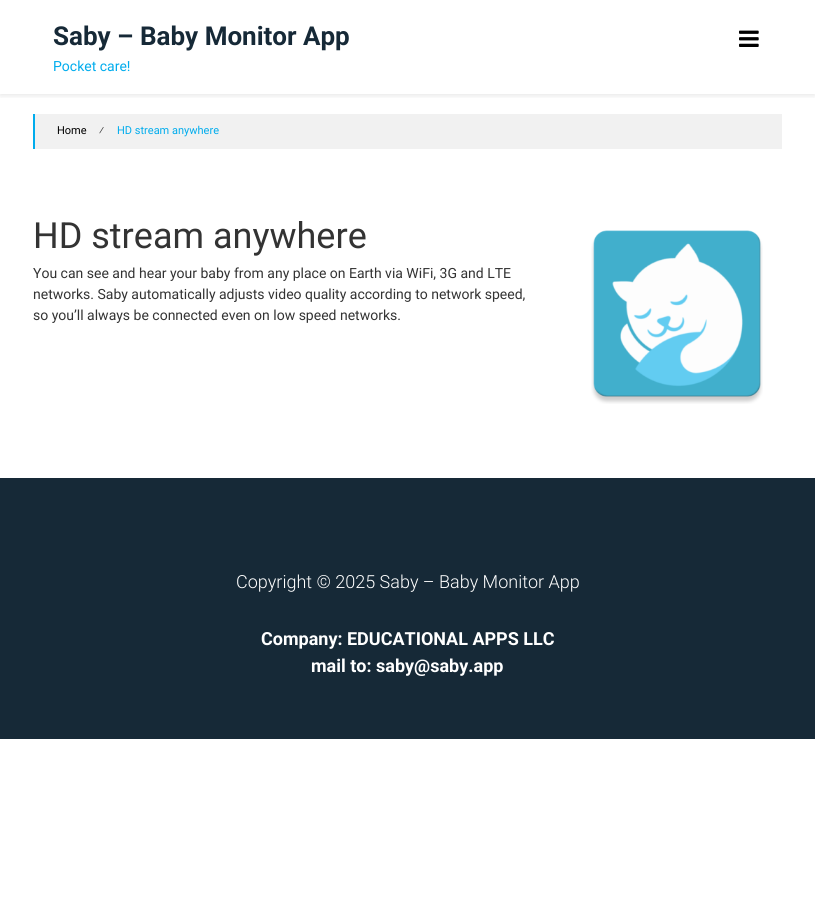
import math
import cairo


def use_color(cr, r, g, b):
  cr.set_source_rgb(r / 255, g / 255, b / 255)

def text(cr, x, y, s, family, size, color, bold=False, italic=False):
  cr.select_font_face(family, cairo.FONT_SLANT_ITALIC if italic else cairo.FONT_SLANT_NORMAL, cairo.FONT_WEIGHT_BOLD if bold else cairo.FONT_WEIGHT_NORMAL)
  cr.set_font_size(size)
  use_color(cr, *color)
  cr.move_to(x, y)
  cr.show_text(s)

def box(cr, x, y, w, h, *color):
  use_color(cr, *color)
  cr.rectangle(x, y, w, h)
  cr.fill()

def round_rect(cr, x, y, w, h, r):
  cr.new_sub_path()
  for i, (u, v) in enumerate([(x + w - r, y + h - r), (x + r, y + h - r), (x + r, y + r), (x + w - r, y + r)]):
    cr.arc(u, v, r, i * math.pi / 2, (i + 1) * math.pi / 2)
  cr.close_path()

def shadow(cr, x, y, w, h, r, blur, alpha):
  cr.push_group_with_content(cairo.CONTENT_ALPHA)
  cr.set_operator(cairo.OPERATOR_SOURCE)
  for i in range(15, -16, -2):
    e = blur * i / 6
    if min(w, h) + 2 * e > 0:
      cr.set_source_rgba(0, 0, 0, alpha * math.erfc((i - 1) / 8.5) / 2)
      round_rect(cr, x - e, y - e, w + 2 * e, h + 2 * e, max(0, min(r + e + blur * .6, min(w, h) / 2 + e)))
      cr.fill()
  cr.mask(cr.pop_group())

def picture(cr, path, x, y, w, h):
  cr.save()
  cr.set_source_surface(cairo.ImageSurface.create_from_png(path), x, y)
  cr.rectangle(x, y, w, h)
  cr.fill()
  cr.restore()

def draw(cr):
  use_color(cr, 255, 255, 255)
  cr.paint()
  cr.save()
  cr.rectangle(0, 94, 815, 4)
  cr.clip()
  use_color(cr, 0, 0, 0)
  shadow(cr, 0, 2, 815, 94, 0, 3, 0.09)
  cr.restore()
  picture(cr, "img_01.png", 739, 30, 20, 17)
  box(cr, 35, 114, 747, 35, 241, 241, 241)
  box(cr, 33, 114, 2, 35, 0, 172, 237)
  picture(cr, "img_02.png", 591, 230, 172, 174)
  box(cr, 0, 478, 815, 261, 22, 41, 55)
  text(cr, 53, 45, "Saby – Baby Monitor App", "Roboto", 26, (22, 41, 55), bold=True)
  text(cr, 53, 71, "Pocket care!", "Roboto", 14, (0, 172, 237))
  text(cr, 57, 134, "Home", "Roboto", 11, (0, 0, 0))
  text(cr, 99, 134, "⁄", "Roboto", 11, (51, 51, 51))
  text(cr, 117, 134, "HD stream anywhere", "Roboto", 11, (0, 172, 237))
  text(cr, 33, 248, "HD stream anywhere", "Roboto", 36, (51, 51, 51))
  text(cr, 33, 278, "You can see and hear your baby from any place on Earth via WiFi, 3G and LTE", "Roboto", 14, (51, 51, 51))
  text(cr, 33, 299, "networks. Saby automatically adjusts video quality according to network speed,", "Roboto", 14, (51, 51, 51))
  text(cr, 33, 320, "so you’ll always be connected even on low speed networks.", "Roboto", 14, (51, 51, 51))
  text(cr, 236, 588, "Copyright © 2025 Saby – Baby Monitor App", "Roboto Light", 18, (255, 255, 255))
  text(cr, 261, 645, "Company: EDUCATIONAL APPS LLC", "Roboto", 18, (255, 255, 255), bold=True)
  text(cr, 311, 672, "mail to: saby@saby.app", "Roboto", 18, (255, 255, 255), bold=True)


surface = cairo.ImageSurface(cairo.FORMAT_RGB24, 815, 909)
cr = cairo.Context(surface)
options = cairo.FontOptions()
options.set_hint_metrics(cairo.HINT_METRICS_OFF)
options.set_hint_style(cairo.HINT_STYLE_NONE)
cr.set_font_options(options)
cr.set_miter_limit(4)
draw(cr)
surface.write_to_png("out.png")
